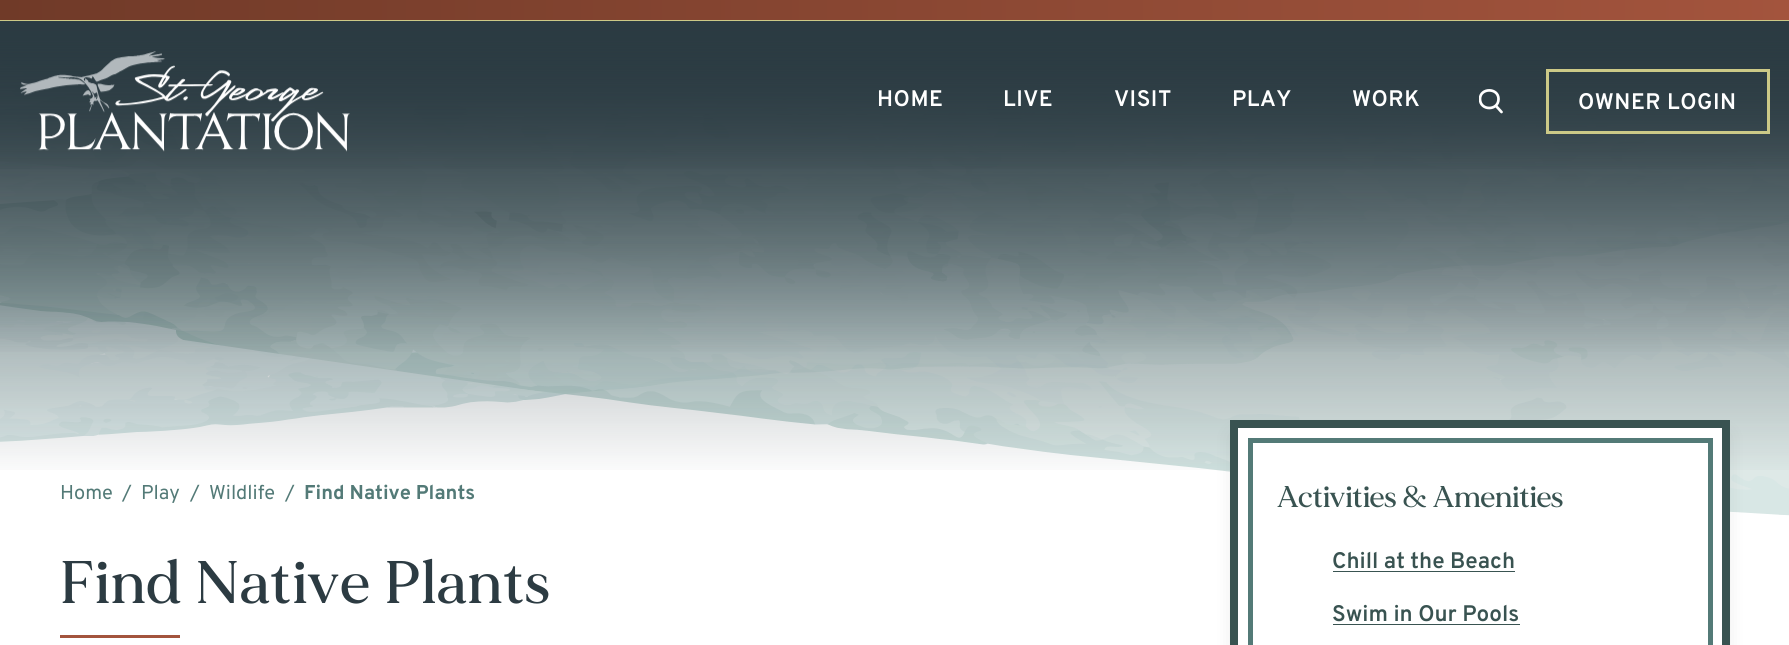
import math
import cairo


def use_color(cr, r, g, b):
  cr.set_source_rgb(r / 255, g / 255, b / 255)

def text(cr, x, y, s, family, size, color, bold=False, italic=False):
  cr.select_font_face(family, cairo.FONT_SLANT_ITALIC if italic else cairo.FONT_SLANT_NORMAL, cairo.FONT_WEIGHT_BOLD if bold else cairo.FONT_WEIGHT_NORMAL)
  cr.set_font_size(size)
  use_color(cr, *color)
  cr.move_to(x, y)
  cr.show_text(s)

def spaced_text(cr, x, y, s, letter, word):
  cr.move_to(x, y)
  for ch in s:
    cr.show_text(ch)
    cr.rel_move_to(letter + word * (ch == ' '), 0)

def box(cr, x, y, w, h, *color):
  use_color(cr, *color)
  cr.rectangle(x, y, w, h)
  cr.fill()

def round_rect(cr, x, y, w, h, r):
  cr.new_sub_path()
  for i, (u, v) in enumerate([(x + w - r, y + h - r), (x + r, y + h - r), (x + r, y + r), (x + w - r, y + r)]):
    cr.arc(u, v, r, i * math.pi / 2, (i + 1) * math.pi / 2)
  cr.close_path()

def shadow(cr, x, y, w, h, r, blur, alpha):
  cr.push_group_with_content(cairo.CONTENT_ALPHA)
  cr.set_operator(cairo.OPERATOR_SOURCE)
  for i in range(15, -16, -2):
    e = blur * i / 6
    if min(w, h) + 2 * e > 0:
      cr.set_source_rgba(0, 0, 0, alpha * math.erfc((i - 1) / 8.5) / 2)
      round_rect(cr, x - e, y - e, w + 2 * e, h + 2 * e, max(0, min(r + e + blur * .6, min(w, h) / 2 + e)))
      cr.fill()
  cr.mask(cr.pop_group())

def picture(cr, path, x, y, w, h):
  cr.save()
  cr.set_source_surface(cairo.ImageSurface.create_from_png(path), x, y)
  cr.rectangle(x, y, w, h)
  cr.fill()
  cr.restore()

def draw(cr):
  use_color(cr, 255, 255, 255)
  cr.paint()
  gradient = cairo.LinearGradient(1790, 10, 0, 10)
  gradient.add_color_stop_rgba(0, 0.639, 0.329, 0.239, 1)
  gradient.add_color_stop_rgba(1, 0.439, 0.227, 0.157, 1)
  cr.set_source(gradient)
  cr.rectangle(0, 0, 1789, 20)
  cr.fill()
  box(cr, 0, 20, 1789, 1, 204, 201, 135)
  picture(cr, "img_02.png", 0, 22, 1789, 494)
  gradient = cairo.LinearGradient(895, 0, 895, 360)
  gradient.add_color_stop_rgba(0, 0.169, 0.231, 0.259, 1)
  gradient.add_color_stop_rgba(0.5, 0.169, 0.231, 0.259, 0.5)
  gradient.add_color_stop_rgba(1, 0.169, 0.231, 0.259, 0)
  cr.set_source(gradient)
  cr.rectangle(0, 22, 1789, 330)
  cr.fill()
  gradient = cairo.LinearGradient(895, 0, 895, 480)
  gradient.add_color_stop_rgba(0, 0.169, 0.231, 0.259, 1)
  gradient.add_color_stop_rgba(1, 0.169, 0.231, 0.259, 0)
  cr.set_source(gradient)
  cr.rectangle(0, 22, 1789, 448)
  cr.fill()
  gradient = cairo.LinearGradient(895, 21, 895, 181)
  gradient.add_color_stop_rgba(0, 0.169, 0.231, 0.259, 1)
  gradient.add_color_stop_rgba(1, 0.169, 0.231, 0.259, 0)
  cr.set_source(gradient)
  cr.rectangle(0, 21, 1789, 148)
  cr.fill()
  picture(cr, "img_01.png", 20, 51, 330, 101)
  cr.save()
  cr.rectangle(1479, 89, 25, 25)
  cr.clip()
  cr.new_path()
  cr.move_to(1498.5, 99)
  cr.curve_to(1498.5, 111, 1480, 111, 1480, 99)
  cr.curve_to(1480, 87.5, 1498.5, 87.5, 1498.5, 99)
  cr.close_path()
  use_color(cr, 255, 255, 255)
  cr.set_line_width(2.7)
  cr.set_line_cap(cairo.LINE_CAP_ROUND)
  cr.set_line_join(cairo.LINE_JOIN_ROUND)
  cr.stroke()
  cr.restore()
  cr.new_path()
  cr.move_to(1501.5, 112)
  cr.line_to(1496.5, 106.5)
  use_color(cr, 255, 255, 255)
  cr.set_line_width(2.7)
  cr.set_line_cap(cairo.LINE_CAP_ROUND)
  cr.set_line_join(cairo.LINE_JOIN_ROUND)
  cr.stroke()
  cr.rectangle(1547.5, 70.5, 221, 62)
  use_color(cr, 204, 201, 135)
  cr.set_line_width(3)
  cr.set_line_cap(cairo.LINE_CAP_BUTT)
  cr.set_line_join(cairo.LINE_JOIN_MITER)
  cr.stroke()
  box(cr, 60, 635, 120, 3, 163, 84, 61)
  use_color(cr, 0, 0, 0)
  shadow(cr, 1234, 436, 492, 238, 0, 9.5, 0.1)
  use_color(cr, 255, 255, 255)
  cr.rectangle(1234, 424, 492, 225)
  cr.fill_preserve()
  use_color(cr, 57, 83, 81)
  cr.set_line_width(8)
  cr.stroke()
  cr.rectangle(1250.5, 440.5, 460, 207)
  use_color(cr, 83, 122, 119)
  cr.set_line_width(5)
  cr.stroke()
  box(cr, 1333, 571, 182, 1, 57, 83, 81)
  box(cr, 1333, 624, 187, 1, 57, 83, 81)
  cr.select_font_face("Overpass SemiBold")
  cr.set_font_size(22.5)
  use_color(cr, 255, 255, 255)
  spaced_text(cr, 877, 106, "HOME", 0.5, 0)
  spaced_text(cr, 1003, 106, "LIVE", 0.5, 0)
  spaced_text(cr, 1114, 106, "VISIT", 0.5, 0)
  spaced_text(cr, 1232, 106, "PLAY", 0.5, 0)
  spaced_text(cr, 1352, 106, "WORK", 0.5, 0)
  spaced_text(cr, 1578, 109, "OWNER LOGIN", 0.5, 0)
  text(cr, 60, 499, "Home", "Overpass", 20, (83, 122, 119))
  text(cr, 122, 499, "/", "Overpass", 20, (83, 122, 119))
  text(cr, 141, 499, "Play", "Overpass", 20, (83, 122, 119))
  text(cr, 190, 499, "/", "Overpass", 20, (83, 122, 119))
  text(cr, 209, 499, "Wildlife", "Overpass", 20, (83, 122, 119))
  text(cr, 285, 499, "/", "Overpass", 20, (83, 122, 119))
  text(cr, 304, 499, "Find Native Plants", "Overpass", 20, (83, 122, 119), bold=True)
  cr.select_font_face("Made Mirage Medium")
  cr.set_font_size(60)
  use_color(cr, 44, 59, 66)
  spaced_text(cr, 60, 603, "Find Native Plants", 1.5, 0)
  text(cr, 1277, 507, "Activities & Amenities", "Made Mirage Medium", 30, (57, 83, 81))
  text(cr, 1332, 568, "Chill at the Beach", "Overpass SemiBold", 22.5, (57, 83, 81))
  text(cr, 1332, 621, "Swim in Our Pools", "Overpass SemiBold", 22.5, (57, 83, 81))


surface = cairo.ImageSurface(cairo.FORMAT_RGB24, 1789, 645)
cr = cairo.Context(surface)
options = cairo.FontOptions()
options.set_hint_metrics(cairo.HINT_METRICS_OFF)
options.set_hint_style(cairo.HINT_STYLE_NONE)
cr.set_font_options(options)
cr.set_miter_limit(4)
draw(cr)
surface.write_to_png("out.png")
